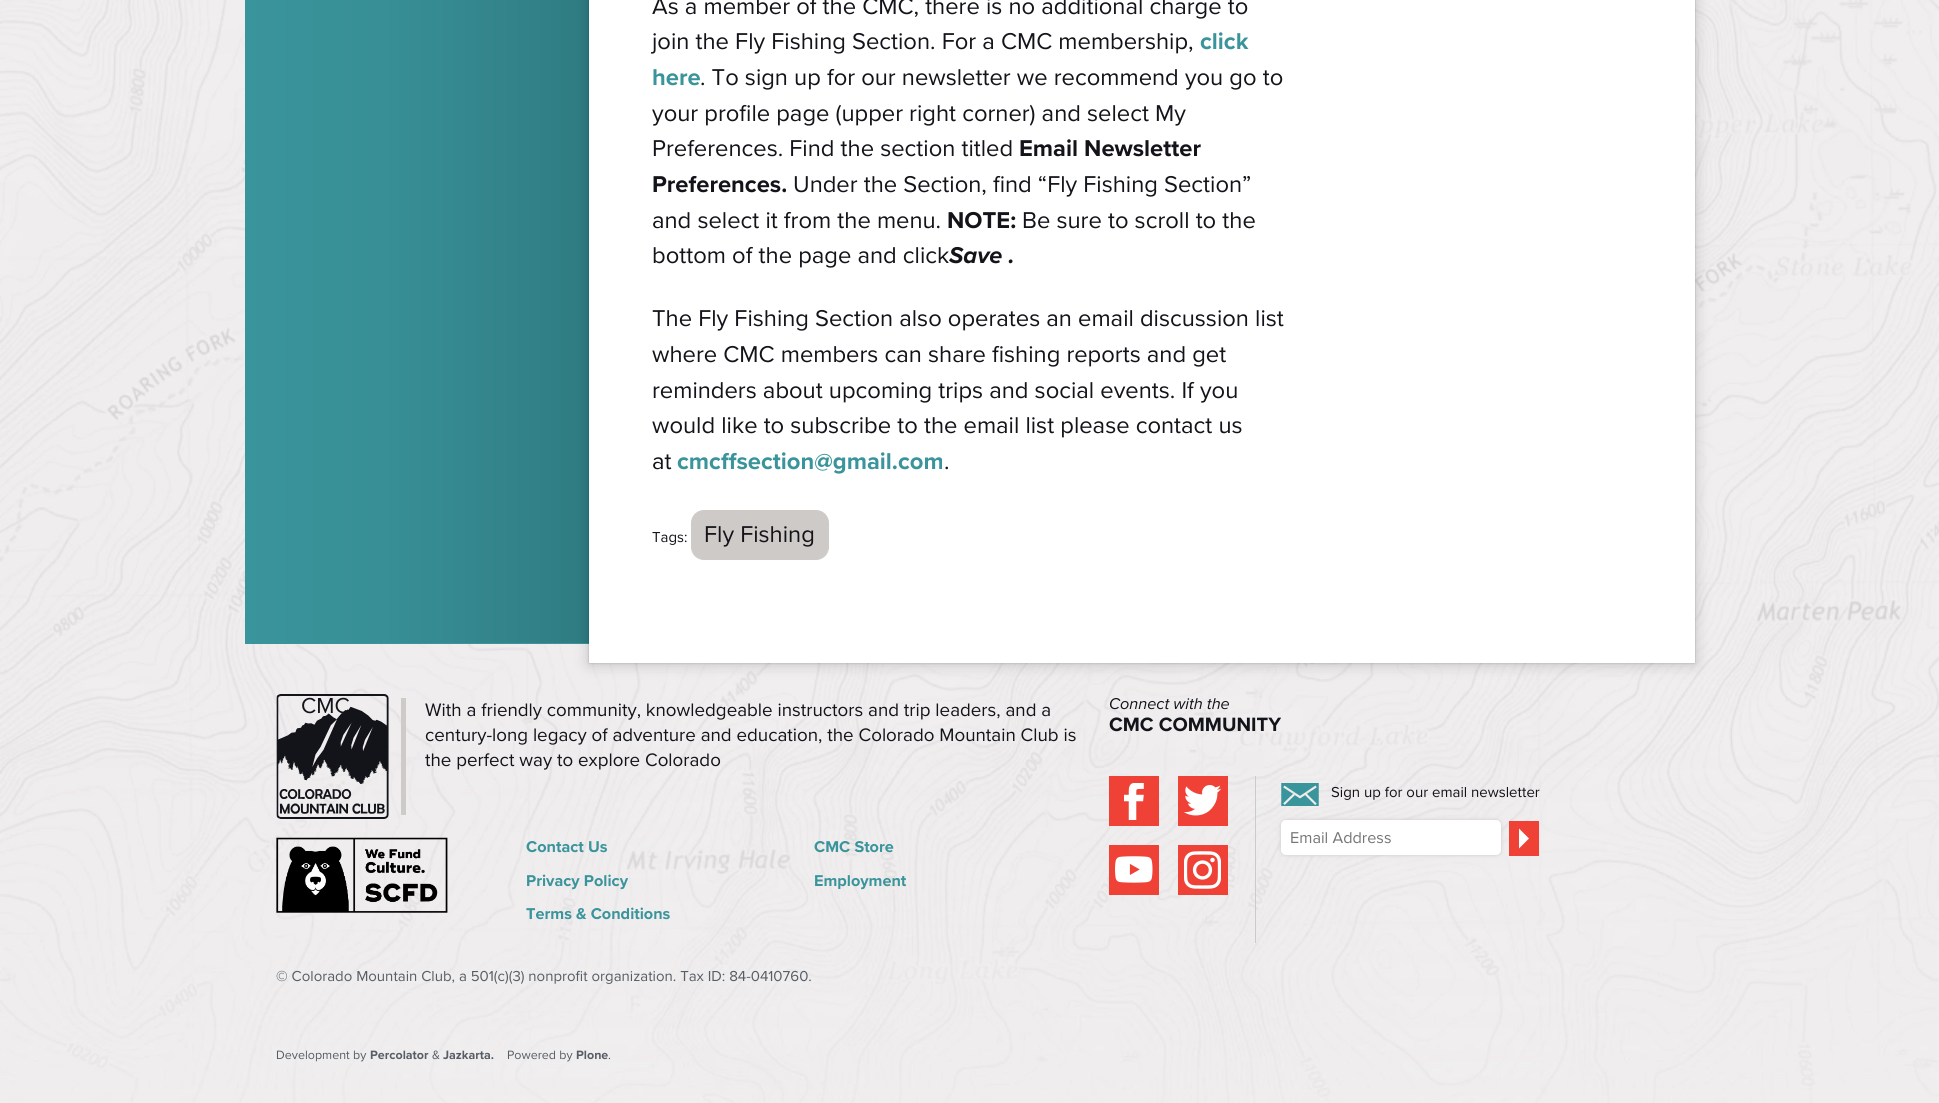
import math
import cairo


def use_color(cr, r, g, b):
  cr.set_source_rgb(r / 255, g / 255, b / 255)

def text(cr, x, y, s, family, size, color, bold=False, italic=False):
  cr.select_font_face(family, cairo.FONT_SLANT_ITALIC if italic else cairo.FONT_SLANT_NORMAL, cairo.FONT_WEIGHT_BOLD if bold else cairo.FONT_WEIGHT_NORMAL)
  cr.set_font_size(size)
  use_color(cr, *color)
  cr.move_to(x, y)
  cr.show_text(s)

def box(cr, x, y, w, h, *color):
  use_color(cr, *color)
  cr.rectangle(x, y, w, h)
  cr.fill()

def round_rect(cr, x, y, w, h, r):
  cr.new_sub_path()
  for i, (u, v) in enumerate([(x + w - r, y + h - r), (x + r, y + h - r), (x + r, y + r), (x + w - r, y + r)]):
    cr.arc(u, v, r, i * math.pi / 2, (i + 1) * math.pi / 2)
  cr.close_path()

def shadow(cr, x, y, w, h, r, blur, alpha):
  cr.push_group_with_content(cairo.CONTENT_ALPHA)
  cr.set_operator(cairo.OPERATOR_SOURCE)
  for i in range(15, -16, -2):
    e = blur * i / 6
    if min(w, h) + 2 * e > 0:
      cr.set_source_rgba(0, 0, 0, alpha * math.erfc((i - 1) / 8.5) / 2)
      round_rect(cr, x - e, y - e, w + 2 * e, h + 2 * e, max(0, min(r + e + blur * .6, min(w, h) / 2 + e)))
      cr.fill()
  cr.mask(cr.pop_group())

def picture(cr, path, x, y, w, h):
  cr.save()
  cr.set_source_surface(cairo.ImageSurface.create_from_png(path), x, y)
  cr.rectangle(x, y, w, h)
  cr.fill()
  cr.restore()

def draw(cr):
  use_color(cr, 255, 255, 255)
  cr.paint()
  picture(cr, "img_01.png", 0, 0, 1939, 1103)
  gradient = cairo.LinearGradient(245, -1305, 589, -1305)
  gradient.add_color_stop_rgba(0, 0.227, 0.58, 0.608, 1)
  gradient.add_color_stop_rgba(0.4, 0.22, 0.561, 0.588, 1)
  gradient.add_color_stop_rgba(0.69, 0.204, 0.525, 0.553, 1)
  gradient.add_color_stop_rgba(1, 0.184, 0.486, 0.51, 1)
  cr.set_source(gradient)
  cr.rectangle(245, 0, 344, 643)
  cr.fill()
  box(cr, 245, 643, 344, 1, 58, 148, 155)
  use_color(cr, 0, 0, 0)
  shadow(cr, 589, -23, 1106, 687, 0, 7.5, 0.2)
  shadow(cr, 589, -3, 1106, 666, 0, 1, 0.2)
  box(cr, 589, 0, 1106, 663, 255, 255, 255)
  use_color(cr, 206, 202, 200)
  round_rect(cr, 691.5, 510.5, 137, 49, 12.5)
  cr.fill_preserve()
  cr.set_line_width(1)
  cr.stroke()
  picture(cr, "img_02.png", 276, 694, 113, 125)
  box(cr, 401, 698, 5, 117, 206, 202, 200)
  picture(cr, "img_03.png", 276, 837, 172, 76)
  box(cr, 1255, 776, 1, 167, 206, 202, 200)
  box(cr, 1109, 776, 50, 50, 239, 65, 54)
  picture(cr, "img_04.png", 1124, 783, 20, 37)
  box(cr, 1178, 776, 50, 50, 239, 65, 54)
  picture(cr, "img_05.png", 1184, 785, 37, 31)
  box(cr, 1109, 845, 50, 50, 239, 65, 54)
  picture(cr, "img_06.png", 1115, 856, 38, 27)
  box(cr, 1178, 845, 50, 50, 239, 65, 54)
  picture(cr, "img_07.png", 1184, 851, 37, 38)
  picture(cr, "img_08.png", 1281, 783, 38, 23)
  use_color(cr, 206, 202, 200)
  shadow(cr, 1281, 820, 220, 35, 5, 2, 1)
  use_color(cr, 255, 255, 255)
  round_rect(cr, 1281, 820, 220, 35, 5)
  cr.fill()
  box(cr, 1509, 821, 30, 35, 239, 65, 54)
  use_color(cr, 255, 255, 255)
  cr.set_fill_rule(cairo.FILL_RULE_EVEN_ODD)
  cr.new_path()
  cr.move_to(1519, 848.5)
  cr.line_to(1529, 838.5)
  cr.line_to(1519, 828.5)
  cr.close_path()
  cr.fill()
  text(cr, 652, 14, "As a member of the CMC, there is no additional charge to", "Proxima Nova", 23.75, (19, 20, 26))
  text(cr, 652, 49, "join the Fly Fishing Section. For a CMC membership,", "Proxima Nova", 23.75, (19, 20, 26))
  text(cr, 1200, 49, "click", "Proxima Nova", 23.75, (58, 148, 155), bold=True)
  text(cr, 652, 85, "here", "Proxima Nova", 23.75, (58, 148, 155), bold=True)
  text(cr, 700, 85, ". To sign up for our newsletter we recommend you go to", "Proxima Nova", 23.75, (19, 20, 26))
  text(cr, 652, 121, "your profile page (upper right corner) and select My", "Proxima Nova", 23.75, (19, 20, 26))
  text(cr, 652, 156, "Preferences. Find the section titled", "Proxima Nova", 23.75, (19, 20, 26))
  text(cr, 1019, 156, "Email Newsletter", "Proxima Nova", 23.75, (19, 20, 26), bold=True)
  text(cr, 652, 192, "Preferences.", "Proxima Nova", 23.75, (19, 20, 26), bold=True)
  text(cr, 793, 192, "Under the Section, find “Fly Fishing Section”", "Proxima Nova", 23.75, (19, 20, 26))
  text(cr, 652, 228, "and select it from the menu.", "Proxima Nova", 23.75, (19, 20, 26))
  text(cr, 947, 228, "NOTE:", "Proxima Nova", 23.75, (19, 20, 26), bold=True)
  text(cr, 1022, 228, "Be sure to scroll to the", "Proxima Nova", 23.75, (19, 20, 26))
  text(cr, 652, 263, "bottom of the page and click", "Proxima Nova", 23.75, (19, 20, 26))
  text(cr, 949, 263, "Save .", "Proxima Nova", 23.75, (19, 20, 26), bold=True, italic=True)
  text(cr, 652, 326, "The Fly Fishing Section also operates an email discussion list", "Proxima Nova", 23.75, (19, 20, 26))
  text(cr, 652, 362, "where CMC members can share fishing reports and get", "Proxima Nova", 23.75, (19, 20, 26))
  text(cr, 652, 398, "reminders about upcoming trips and social events. If you", "Proxima Nova", 23.75, (19, 20, 26))
  text(cr, 652, 433, "would like to subscribe to the email list please contact us", "Proxima Nova", 23.75, (19, 20, 26))
  text(cr, 652, 469, "at", "Proxima Nova", 23.75, (19, 20, 26))
  text(cr, 677, 469, "cmcffsection@gmail.com", "Proxima Nova", 23.75, (58, 148, 155), bold=True)
  text(cr, 944, 469, ".", "Proxima Nova", 23.75, (19, 20, 26))
  text(cr, 652, 542, "Tags:", "Proxima Nova", 15, (19, 20, 26))
  text(cr, 704, 542, "Fly Fishing", "Proxima Nova", 23.75, (19, 20, 26))
  text(cr, 301, 713, "CMC", "Proxima Nova", 22.5, (19, 20, 26))
  text(cr, 425, 716, "With a friendly community, knowledgeable instructors and trip leaders, and a", "Proxima Nova", 18.75, (19, 20, 26))
  text(cr, 425, 741, "century-long legacy of adventure and education, the Colorado Mountain Club is", "Proxima Nova", 18.75, (19, 20, 26))
  text(cr, 425, 766, "the perfect way to explore Colorado", "Proxima Nova", 18.75, (19, 20, 26))
  text(cr, 526, 852, "Contact Us", "Proxima Nova", 16.25, (58, 148, 155), bold=True)
  text(cr, 814, 852, "CMC Store", "Proxima Nova", 16.25, (58, 148, 155), bold=True)
  text(cr, 526, 886, "Privacy Policy", "Proxima Nova", 16.25, (58, 148, 155), bold=True)
  text(cr, 814, 886, "Employment", "Proxima Nova", 16.25, (58, 148, 155), bold=True)
  text(cr, 526, 919, "Terms & Conditions", "Proxima Nova", 16.25, (58, 148, 155), bold=True)
  text(cr, 1109, 709, "Connect with the", "Proxima Nova", 16.25, (19, 20, 26), italic=True)
  text(cr, 1109, 731, "CMC COMMUNITY", "Proxima Nova", 20, (19, 20, 26), bold=True)
  text(cr, 1331, 797, "Sign up for our email newsletter", "Proxima Nova", 15, (19, 20, 26))
  text(cr, 1290, 843, "Email Address", "Proxima Nova", 16.25, (117, 117, 117))
  text(cr, 276, 981, "© Colorado Mountain Club, a 501(c)(3) nonprofit organization. Tax ID: 84-0410760.", "Proxima Nova", 15, (86, 93, 101))
  text(cr, 276, 1059, "Development by", "Proxima Nova", 12.5, (86, 93, 101))
  text(cr, 370, 1059, "Percolator", "Proxima Nova", 12.5, (86, 93, 101), bold=True)
  text(cr, 432, 1059, "&", "Proxima Nova", 12.5, (86, 93, 101))
  text(cr, 443, 1059, "Jazkarta.", "Proxima Nova", 12.5, (86, 93, 101), bold=True)
  text(cr, 507, 1059, "Powered by", "Proxima Nova", 12.5, (86, 93, 101))
  text(cr, 576, 1059, "Plone", "Proxima Nova", 12.5, (86, 93, 101), bold=True)
  text(cr, 608, 1059, ".", "Proxima Nova", 12.5, (86, 93, 101))


surface = cairo.ImageSurface(cairo.FORMAT_RGB24, 1939, 1103)
cr = cairo.Context(surface)
options = cairo.FontOptions()
options.set_hint_metrics(cairo.HINT_METRICS_OFF)
options.set_hint_style(cairo.HINT_STYLE_NONE)
cr.set_font_options(options)
cr.set_miter_limit(4)
draw(cr)
surface.write_to_png("out.png")
